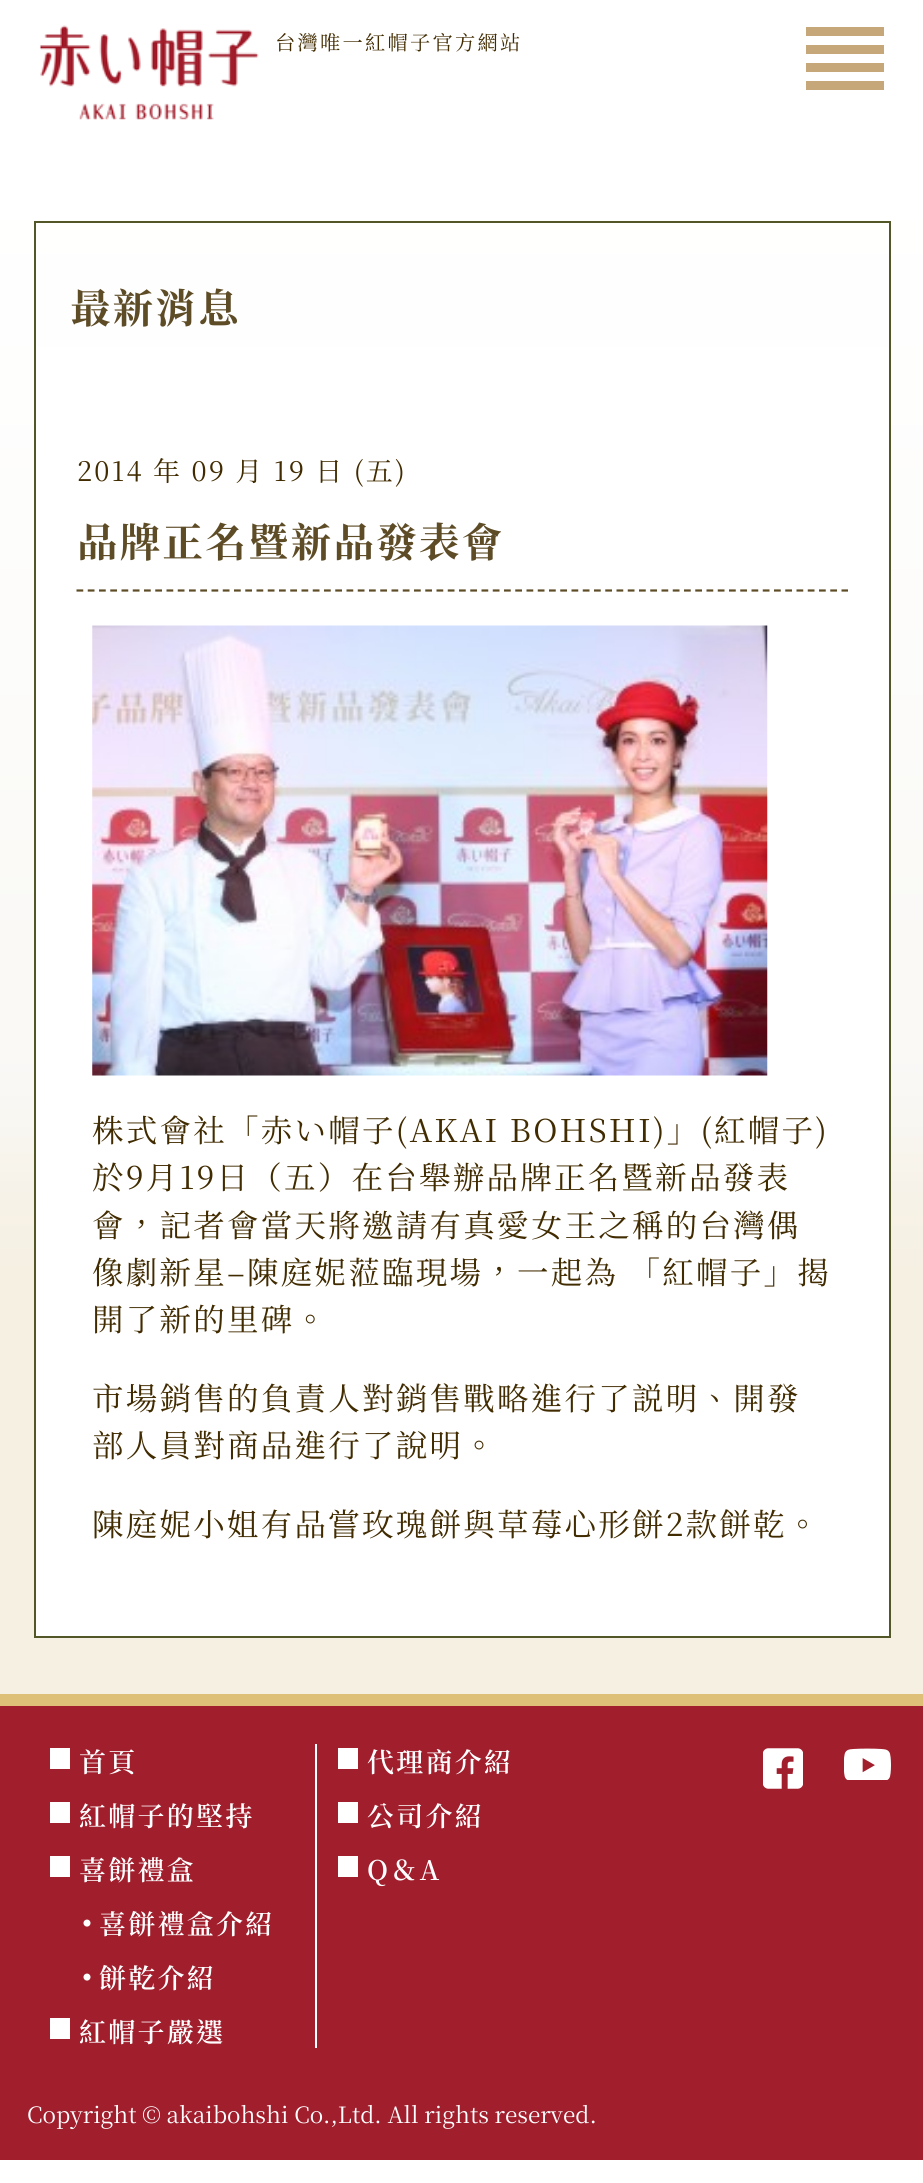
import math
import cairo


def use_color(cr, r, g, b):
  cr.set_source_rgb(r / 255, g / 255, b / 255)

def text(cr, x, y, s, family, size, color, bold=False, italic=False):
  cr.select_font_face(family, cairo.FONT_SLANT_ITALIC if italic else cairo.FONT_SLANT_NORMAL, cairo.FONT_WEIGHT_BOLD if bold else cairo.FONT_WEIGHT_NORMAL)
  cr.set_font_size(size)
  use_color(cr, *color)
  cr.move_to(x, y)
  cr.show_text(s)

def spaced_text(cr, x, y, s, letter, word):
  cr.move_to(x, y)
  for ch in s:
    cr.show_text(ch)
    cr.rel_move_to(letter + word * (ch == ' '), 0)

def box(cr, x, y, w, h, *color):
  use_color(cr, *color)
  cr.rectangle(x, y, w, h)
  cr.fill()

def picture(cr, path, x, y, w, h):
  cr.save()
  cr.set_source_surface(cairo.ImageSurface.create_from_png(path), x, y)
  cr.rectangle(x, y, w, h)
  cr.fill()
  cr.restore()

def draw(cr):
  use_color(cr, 255, 255, 255)
  cr.paint()
  picture(cr, "img_01.png", 40, 25, 219, 95)
  box(cr, 806, 27, 78, 9, 198, 167, 121)
  box(cr, 806, 45, 78, 9, 198, 167, 121)
  box(cr, 806, 63, 78, 9, 198, 167, 121)
  box(cr, 806, 81, 78, 9, 198, 167, 121)
  picture(cr, "img_02.png", 0, 209, 923, 1485)
  box(cr, 36, 347, 853, 1289, 255, 255, 255)
  cr.rectangle(35, 222, 855, 1415)
  use_color(cr, 83, 87, 40)
  cr.stroke()
  cr.new_path()
  cr.move_to(76.5, 590.5)
  cr.line_to(848, 590.5)
  use_color(cr, 94, 76, 39)
  cr.set_line_width(2.2)
  cr.set_dash([6.75, 4.5])
  cr.stroke()
  picture(cr, "img_03.png", 92, 625, 676, 451)
  box(cr, 0, 1706, 923, 454, 161, 30, 45)
  box(cr, 0, 1694, 923, 12, 222, 192, 121)
  box(cr, 50, 1748, 20, 21, 255, 255, 255)
  box(cr, 315, 1744, 2, 304, 255, 255, 255)
  box(cr, 50, 1802, 20, 21, 255, 255, 255)
  box(cr, 50, 1856, 20, 21, 255, 255, 255)
  box(cr, 50, 2018, 20, 21, 255, 255, 255)
  box(cr, 338, 1748, 20, 21, 255, 255, 255)
  box(cr, 338, 1802, 20, 21, 255, 255, 255)
  box(cr, 338, 1856, 20, 21, 255, 255, 255)
  picture(cr, "img_04.png", 763, 1748, 40, 41)
  picture(cr, "img_05.png", 844, 1748, 47, 32)
  cr.select_font_face("Noto Serif TC")
  cr.set_font_size(20.25)
  use_color(cr, 65, 43, 0)
  spaced_text(cr, 275, 50, "台灣唯一紅帽子官方網站", 2.25, 0)
  cr.select_font_face("Noto Serif TC", cairo.FONT_SLANT_NORMAL, cairo.FONT_WEIGHT_BOLD)
  cr.set_font_size(40.5)
  use_color(cr, 94, 76, 39)
  spaced_text(cr, 70, 323, "最新消息", 2.25, 0)
  cr.select_font_face("Noto Serif TC")
  cr.set_font_size(27)
  use_color(cr, 65, 43, 0)
  spaced_text(cr, 77, 481, "2014 年 09 月 19 日 (五)", 2.25, 0)
  cr.select_font_face("Noto Serif TC", cairo.FONT_SLANT_NORMAL, cairo.FONT_WEIGHT_BOLD)
  cr.set_font_size(40.5)
  use_color(cr, 94, 76, 39)
  spaced_text(cr, 77, 557, "品牌正名暨新品發表會", 2.25, 0)
  cr.select_font_face("Noto Serif TC")
  cr.set_font_size(31.5)
  use_color(cr, 65, 43, 0)
  spaced_text(cr, 92, 1142, "株式會社「赤い帽子(AKAI BOHSHI)」(紅帽子)", 2.25, 0)
  spaced_text(cr, 92, 1189, "於9月19日（五）在台舉辦品牌正名暨新品發表", 2.25, 0)
  spaced_text(cr, 92, 1237, "會，記者會當天將邀請有真愛女王之稱的台灣偶", 2.25, 0)
  spaced_text(cr, 92, 1284, "像劇新星–陳庭妮蒞臨現場，一起為 「紅帽子」揭", 2.25, 0)
  spaced_text(cr, 92, 1331, "開了新的里碑。", 2.25, 0)
  spaced_text(cr, 92, 1410, "市場銷售的負責人對銷售戰略進行了説明、開發", 2.25, 0)
  spaced_text(cr, 92, 1457, "部人員對商品進行了說明。", 2.25, 0)
  spaced_text(cr, 92, 1536, "陳庭妮小姐有品嘗玫瑰餅與草莓心形餅2款餅乾。", 2.25, 0)
  cr.select_font_face("Noto Serif TC SemiBold")
  cr.set_font_size(27)
  use_color(cr, 255, 255, 255)
  spaced_text(cr, 79, 1772, "首頁", 2.25, 0)
  spaced_text(cr, 79, 1826, "紅帽子的堅持", 2.25, 0)
  spaced_text(cr, 79, 1880, "喜餅禮盒", 2.25, 0)
  cr.set_font_size(34)
  spaced_text(cr, 70, 1936, "・", 2.25, 0)
  cr.set_font_size(27)
  spaced_text(cr, 99, 1934, "喜餅禮盒介紹", 2.25, 0)
  cr.set_font_size(34)
  spaced_text(cr, 70, 1990, "・", 2.25, 0)
  cr.set_font_size(27)
  spaced_text(cr, 99, 1988, "餅乾介紹", 2.25, 0)
  spaced_text(cr, 79, 2042, "紅帽子嚴選", 2.25, 0)
  spaced_text(cr, 367, 1772, "代理商介紹", 2.25, 0)
  spaced_text(cr, 367, 1826, "公司介紹", 2.25, 0)
  spaced_text(cr, 367, 1880, "Q＆A", 2.25, 0)
  text(cr, 27, 2123, "Copyright © akaibohshi Co.,Ltd. All rights reserved.", "Noto Serif TC", 22.5, (255, 255, 255))


surface = cairo.ImageSurface(cairo.FORMAT_RGB24, 923, 2183)
cr = cairo.Context(surface)
options = cairo.FontOptions()
options.set_hint_metrics(cairo.HINT_METRICS_OFF)
options.set_hint_style(cairo.HINT_STYLE_NONE)
cr.set_font_options(options)
cr.set_miter_limit(4)
draw(cr)
surface.write_to_png("out.png")
